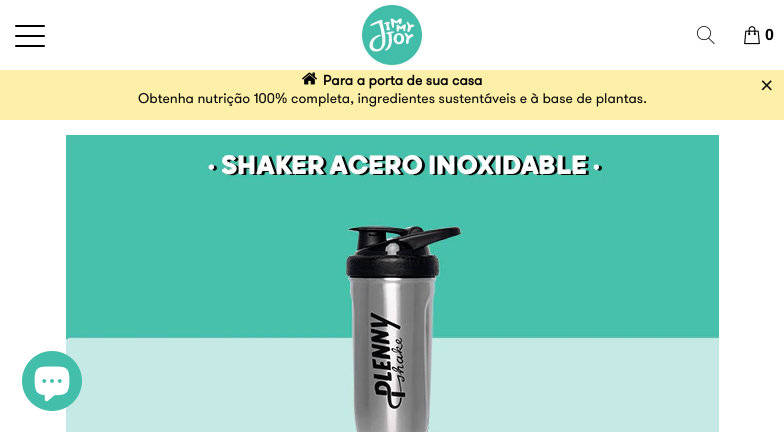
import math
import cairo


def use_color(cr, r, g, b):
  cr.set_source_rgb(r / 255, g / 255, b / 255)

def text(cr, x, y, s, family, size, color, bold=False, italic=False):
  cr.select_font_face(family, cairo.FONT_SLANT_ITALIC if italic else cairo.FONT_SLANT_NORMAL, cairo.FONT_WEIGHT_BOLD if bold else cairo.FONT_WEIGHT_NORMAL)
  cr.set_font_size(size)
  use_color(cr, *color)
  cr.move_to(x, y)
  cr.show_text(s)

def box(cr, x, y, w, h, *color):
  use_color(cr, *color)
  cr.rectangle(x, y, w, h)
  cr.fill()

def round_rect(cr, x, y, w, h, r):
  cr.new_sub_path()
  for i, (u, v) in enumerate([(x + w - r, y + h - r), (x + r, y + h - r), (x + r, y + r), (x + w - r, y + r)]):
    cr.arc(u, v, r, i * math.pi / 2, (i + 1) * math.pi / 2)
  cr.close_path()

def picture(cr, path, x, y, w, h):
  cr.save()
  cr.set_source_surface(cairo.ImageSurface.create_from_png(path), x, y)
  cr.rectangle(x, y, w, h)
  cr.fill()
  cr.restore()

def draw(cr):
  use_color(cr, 255, 255, 255)
  cr.paint()
  use_color(cr, 0, 0, 0)
  round_rect(cr, 15, 25, 30, 2, 1)
  cr.fill()
  round_rect(cr, 15, 35, 30, 2, 1)
  cr.fill()
  round_rect(cr, 15, 45, 30, 2, 1)
  cr.fill()
  picture(cr, "img_01.png", 362, 5, 60, 60)
  picture(cr, "img_02.png", 697, 26, 18, 18)
  picture(cr, "img_03.png", 744, 26, 16, 19)
  box(cr, 0, 70, 784, 50, 252, 240, 169)
  picture(cr, "img_04.png", 302, 72, 15, 13)
  picture(cr, "img_06.png", 66, 135, 653, 297)
  use_color(cr, 66, 190, 171)
  cr.arc(52, 381, 30, 0, 2 * math.pi)
  cr.fill()
  picture(cr, "img_05.png", 34, 366, 36, 36)
  text(cr, 765, 40, "0", "Liberation Sans", 16, (0, 0, 0), bold=True)
  text(cr, 323, 85, "Para a porta de sua casa", "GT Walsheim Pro", 14, (0, 0, 0), bold=True)
  text(cr, 138, 103, "Obtenha nutrição 100% completa, ingredientes sustentáveis e à base de plantas.", "GT Walsheim Pro", 14, (0, 0, 0))
  text(cr, 760, 93, "×", "Liberation Sans", 23, (21, 21, 21))


surface = cairo.ImageSurface(cairo.FORMAT_RGB24, 784, 432)
cr = cairo.Context(surface)
options = cairo.FontOptions()
options.set_hint_metrics(cairo.HINT_METRICS_OFF)
options.set_hint_style(cairo.HINT_STYLE_NONE)
cr.set_font_options(options)
cr.set_miter_limit(4)
draw(cr)
surface.write_to_png("out.png")
